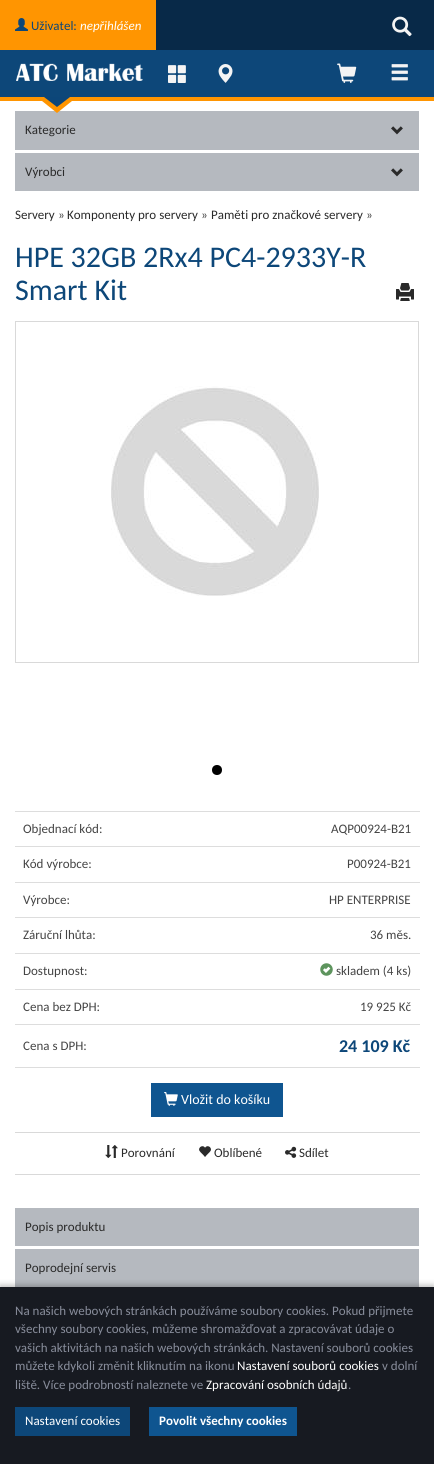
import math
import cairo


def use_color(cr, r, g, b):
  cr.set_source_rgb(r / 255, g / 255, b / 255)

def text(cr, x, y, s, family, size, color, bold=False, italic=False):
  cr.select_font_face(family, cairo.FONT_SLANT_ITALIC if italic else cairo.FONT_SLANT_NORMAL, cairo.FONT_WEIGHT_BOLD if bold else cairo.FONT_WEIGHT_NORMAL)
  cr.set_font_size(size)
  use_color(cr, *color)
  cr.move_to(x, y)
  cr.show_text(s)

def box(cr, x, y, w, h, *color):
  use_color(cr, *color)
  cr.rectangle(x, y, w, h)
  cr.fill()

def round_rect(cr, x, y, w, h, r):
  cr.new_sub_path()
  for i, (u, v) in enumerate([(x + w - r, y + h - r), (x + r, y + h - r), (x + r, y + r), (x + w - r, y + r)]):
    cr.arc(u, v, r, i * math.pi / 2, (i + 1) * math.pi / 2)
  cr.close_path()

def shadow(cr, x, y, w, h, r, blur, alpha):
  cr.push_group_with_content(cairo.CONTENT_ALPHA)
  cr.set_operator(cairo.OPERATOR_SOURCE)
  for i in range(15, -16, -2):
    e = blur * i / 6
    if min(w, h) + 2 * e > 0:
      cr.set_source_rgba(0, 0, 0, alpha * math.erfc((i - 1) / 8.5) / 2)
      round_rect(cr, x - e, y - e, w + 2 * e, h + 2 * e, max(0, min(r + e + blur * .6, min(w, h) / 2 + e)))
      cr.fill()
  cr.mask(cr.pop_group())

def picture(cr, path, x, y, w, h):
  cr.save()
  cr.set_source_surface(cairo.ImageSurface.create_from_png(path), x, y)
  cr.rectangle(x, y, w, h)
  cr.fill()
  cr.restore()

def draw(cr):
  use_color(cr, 255, 255, 255)
  cr.paint()
  box(cr, 156, 0, 278, 50, 8, 41, 72)
  box(cr, 0, 0, 156, 50, 255, 149, 1)
  picture(cr, "img_01.png", 15, 18, 13, 13)
  picture(cr, "img_02.png", 392, 16, 20, 21)
  box(cr, 0, 50, 434, 47, 13, 71, 121)
  box(cr, 0, 97, 434, 4, 255, 149, 1)
  picture(cr, "img_03.png", 16, 63, 127, 18)
  picture(cr, "img_04.png", 168, 65, 18, 18)
  picture(cr, "img_05.png", 218, 64, 15, 19)
  picture(cr, "img_06.png", 337, 63, 20, 20)
  picture(cr, "img_07.png", 391, 64, 17, 17)
  box(cr, 15, 111, 404, 39, 181, 185, 191)
  use_color(cr, 255, 149, 0)
  cr.new_path()
  cr.move_to(37, 97)
  cr.line_to(77, 97)
  cr.line_to(57, 113)
  cr.close_path()
  cr.fill()
  use_color(cr, 12, 70, 121)
  cr.new_path()
  cr.move_to(44, 97)
  cr.line_to(70, 97)
  cr.line_to(57, 107)
  cr.close_path()
  cr.fill()
  picture(cr, "img_08.png", 391, 126, 12, 9)
  box(cr, 15, 153, 404, 38, 181, 185, 191)
  picture(cr, "img_08.png", 391, 168, 12, 9)
  picture(cr, "img_09.png", 396, 283, 18, 18)
  cr.rectangle(15.5, 321.5, 403, 341)
  use_color(cr, 217, 217, 217)
  cr.set_line_width(1)
  cr.stroke()
  picture(cr, "img_10.png", 111, 386, 208, 210)
  use_color(cr, 0, 0, 0)
  cr.arc(217, 770, 5, 0, 2 * math.pi)
  cr.fill()
  box(cr, 15, 811, 405, 1, 221, 221, 221)
  box(cr, 15, 846, 405, 1, 221, 221, 221)
  box(cr, 15, 882, 405, 1, 221, 221, 221)
  box(cr, 15, 917, 405, 1, 221, 221, 221)
  box(cr, 15, 953, 405, 1, 221, 221, 221)
  picture(cr, "img_11.png", 320, 963, 13, 13)
  box(cr, 15, 989, 405, 1, 221, 221, 221)
  box(cr, 15, 1024, 405, 1, 221, 221, 221)
  box(cr, 15, 1067, 405, 1, 221, 221, 221)
  box(cr, 151, 1083, 132, 34, 15, 85, 144)
  picture(cr, "img_12.png", 164, 1092, 14, 14)
  box(cr, 15, 1132, 405, 1, 217, 217, 217)
  box(cr, 15, 1174, 405, 1, 217, 217, 217)
  picture(cr, "img_13.png", 105, 1145, 13, 13)
  picture(cr, "img_14.png", 199, 1146, 12, 11)
  picture(cr, "img_15.png", 285, 1146, 12, 12)
  box(cr, 15, 1208, 404, 38, 181, 185, 191)
  box(cr, 15, 1249, 404, 38, 181, 185, 191)
  use_color(cr, 0, 0, 0)
  shadow(cr, 0, 1285, 434, 177, 0, 3, 0.26)
  box(cr, 0, 1287, 434, 177, 23, 26, 33)
  box(cr, 15, 1407, 115, 29, 13, 71, 121)
  box(cr, 149, 1407, 148, 29, 15, 85, 144)
  text(cr, 31, 30, "Uživatel:", "Carlito", 13, (13, 71, 121))
  text(cr, 80, 30, "nepřihlášen", "Carlito", 13, (255, 255, 255), italic=True)
  text(cr, 25, 134, "Kategorie", "Carlito", 13, (42, 42, 42))
  text(cr, 25, 176, "Výrobci", "Carlito", 13, (42, 42, 42))
  text(cr, 15, 219, "Servery", "Carlito", 13, (42, 42, 42))
  text(cr, 58, 219, "»", "Carlito", 13, (68, 68, 68))
  text(cr, 67, 219, "Komponenty pro servery", "Carlito", 13, (42, 42, 42))
  text(cr, 201, 219, "»", "Carlito", 13, (68, 68, 68))
  text(cr, 211, 219, "Paměti pro značkové servery", "Carlito", 13, (42, 42, 42))
  text(cr, 366, 219, "»", "Carlito", 13, (68, 68, 68))
  text(cr, 15, 267, "HPE 32GB 2Rx4 PC4-2933Y-R", "Carlito", 30, (13, 71, 121))
  text(cr, 15, 300, "Smart Kit", "Carlito", 30, (13, 71, 121))
  text(cr, 23, 833, "Objednací kód:", "Carlito", 13, (68, 68, 68))
  text(cr, 331, 833, "AQP00924-B21", "Carlito", 13, (68, 68, 68))
  text(cr, 23, 868, "Kód výrobce:", "Carlito", 13, (68, 68, 68))
  text(cr, 347, 868, "P00924-B21", "Carlito", 13, (68, 68, 68))
  text(cr, 23, 904, "Výrobce:", "Carlito", 13, (68, 68, 68))
  text(cr, 329, 904, "HP ENTERPRISE", "Carlito", 13, (68, 68, 68))
  text(cr, 23, 939, "Záruční lhůta:", "Carlito", 13, (68, 68, 68))
  text(cr, 370, 939, "36 měs.", "Carlito", 13, (68, 68, 68))
  text(cr, 23, 975, "Dostupnost:", "Carlito", 13, (68, 68, 68))
  text(cr, 336, 975, "skladem (4 ks)", "Carlito", 13, (68, 68, 68))
  text(cr, 23, 1011, "Cena bez DPH:", "Carlito", 13, (68, 68, 68))
  text(cr, 360, 1011, "19 925 Kč", "Carlito", 13, (68, 68, 68))
  text(cr, 23, 1050, "Cena s DPH:", "Carlito", 13, (68, 68, 68))
  text(cr, 339, 1052, "24 109 Kč", "Carlito", 18, (13, 71, 121), bold=True)
  text(cr, 181, 1104, "Vložit do košíku", "Carlito", 14, (255, 255, 255))
  text(cr, 121, 1157, "Porovnání", "Carlito", 13, (42, 42, 42))
  text(cr, 214, 1157, "Oblíbené", "Carlito", 13, (42, 42, 42))
  text(cr, 299, 1157, "Sdílet", "Carlito", 13, (42, 42, 42))
  text(cr, 25, 1231, "Popis produktu", "Carlito", 13, (42, 42, 42))
  text(cr, 25, 1272, "Poprodejní servis", "Carlito", 13, (42, 42, 42))
  text(cr, 15, 1315, "Na našich webových stránkách používáme soubory cookies. Pokud přijmete", "Carlito", 13, (136, 141, 155))
  text(cr, 15, 1333, "všechny soubory cookies, můžeme shromažďovat a zpracovávat údaje o", "Carlito", 13, (136, 141, 155))
  text(cr, 15, 1352, "vašich aktivitách na našich webových stránkách. Nastavení souborů cookies", "Carlito", 13, (136, 141, 155))
  text(cr, 15, 1370, "můžete kdykoli změnit kliknutím na ikonu", "Carlito", 13, (136, 141, 155))
  text(cr, 237, 1370, "Nastavení souborů cookies", "Carlito", 13, (255, 255, 255))
  text(cr, 382, 1370, "v dolní", "Carlito", 13, (136, 141, 155))
  text(cr, 15, 1389, "liště. Více podrobností naleznete ve", "Carlito", 13, (136, 141, 155))
  text(cr, 206, 1389, "Zpracování osobních údajů", "Carlito", 13, (255, 255, 255))
  text(cr, 348, 1389, ".", "Carlito", 13, (136, 141, 155))
  text(cr, 25, 1425, "Nastavení cookies", "Carlito", 13, (255, 255, 255))
  text(cr, 159, 1425, "Povolit všechny cookies", "Carlito", 13, (255, 255, 255), bold=True)


surface = cairo.ImageSurface(cairo.FORMAT_RGB24, 434, 1464)
cr = cairo.Context(surface)
options = cairo.FontOptions()
options.set_hint_metrics(cairo.HINT_METRICS_OFF)
options.set_hint_style(cairo.HINT_STYLE_NONE)
cr.set_font_options(options)
cr.set_miter_limit(4)
draw(cr)
surface.write_to_png("out.png")
